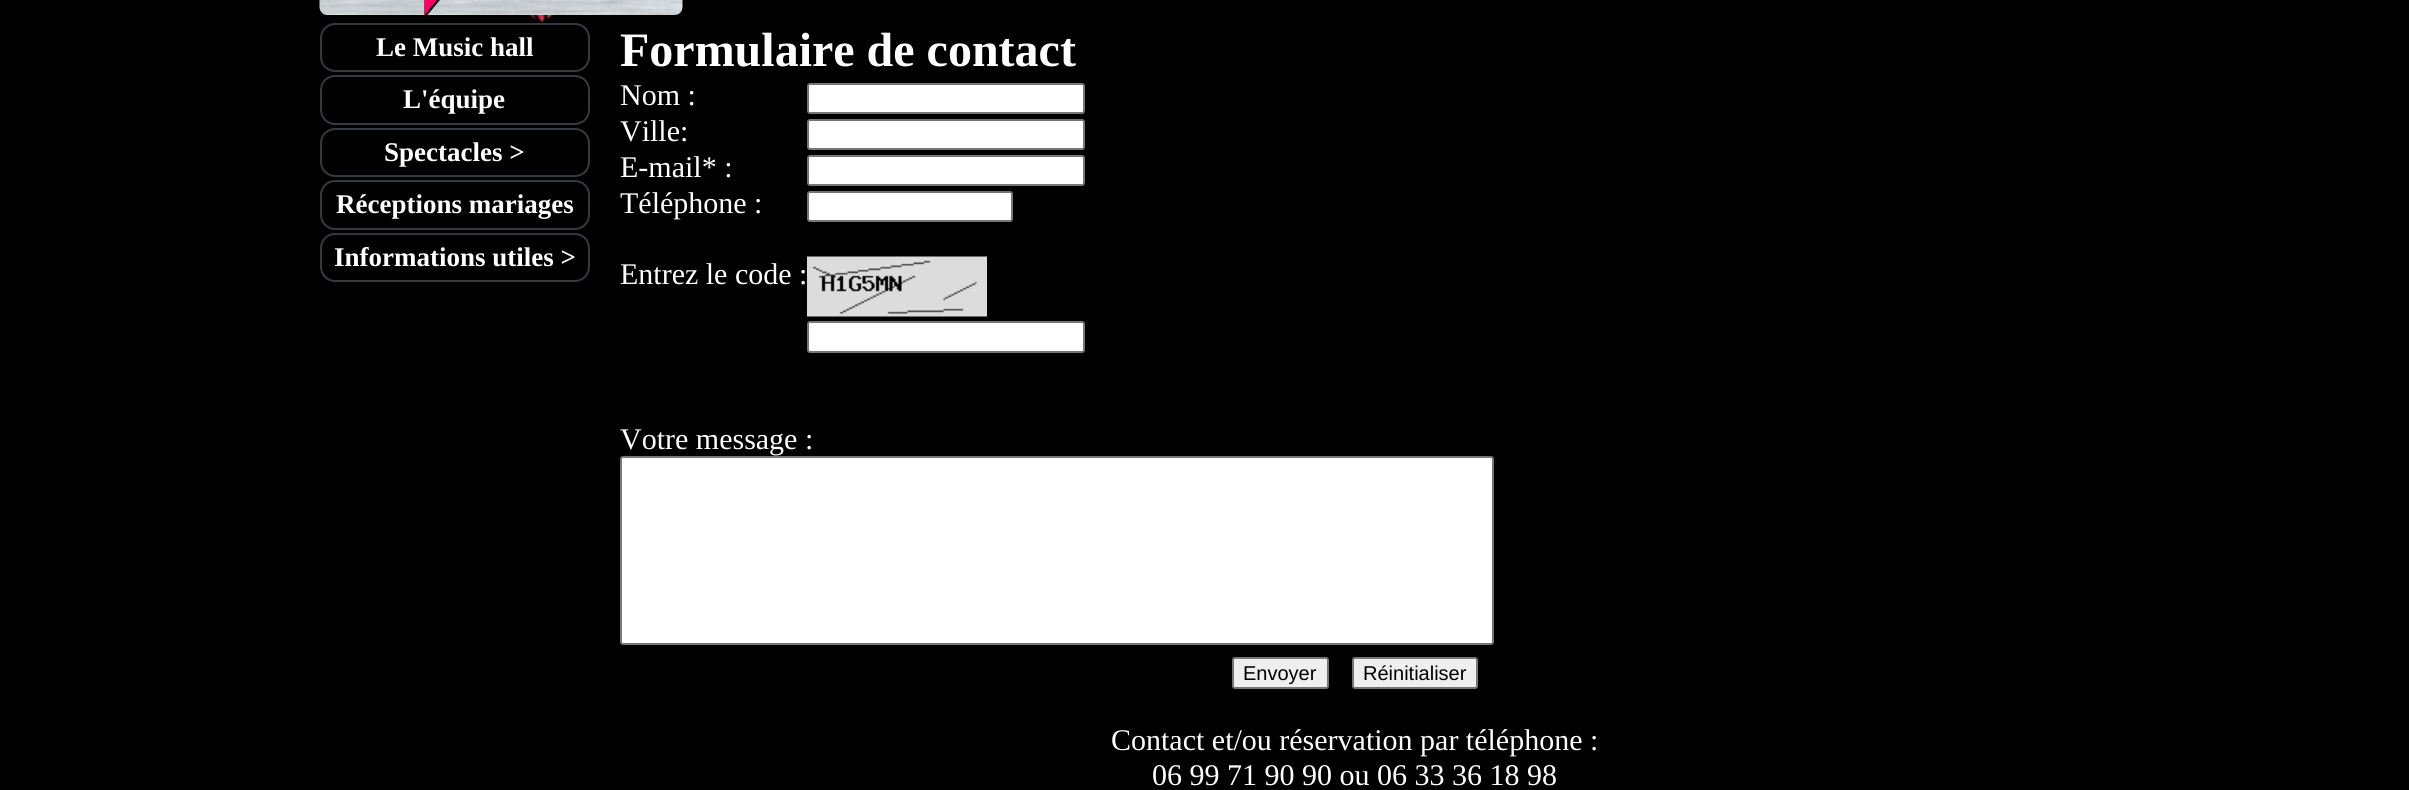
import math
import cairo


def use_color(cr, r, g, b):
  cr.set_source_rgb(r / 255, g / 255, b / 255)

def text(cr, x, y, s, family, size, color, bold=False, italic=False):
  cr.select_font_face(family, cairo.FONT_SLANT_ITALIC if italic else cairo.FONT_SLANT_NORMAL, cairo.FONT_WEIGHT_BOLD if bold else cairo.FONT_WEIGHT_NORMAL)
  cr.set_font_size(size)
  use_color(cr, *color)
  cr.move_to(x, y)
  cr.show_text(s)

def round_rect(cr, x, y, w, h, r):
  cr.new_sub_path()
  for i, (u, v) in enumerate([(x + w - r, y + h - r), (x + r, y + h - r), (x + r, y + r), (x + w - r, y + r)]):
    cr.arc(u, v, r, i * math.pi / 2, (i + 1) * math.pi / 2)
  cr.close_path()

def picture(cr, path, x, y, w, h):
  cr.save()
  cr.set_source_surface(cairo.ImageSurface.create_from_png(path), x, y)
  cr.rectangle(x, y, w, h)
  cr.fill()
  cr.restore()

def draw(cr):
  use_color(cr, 0, 0, 0)
  cr.paint()
  picture(cr, "img_01.png", 524, 15, 35, 8)
  picture(cr, "img_02.png", 319, 0, 106, 15)
  picture(cr, "img_03.png", 427, 0, 256, 15)
  use_color(cr, 17, 17, 17)
  cr.new_path()
  cr.move_to(427.5, 15)
  cr.line_to(427.5, -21)
  cr.line_to(442.5, -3)
  cr.close_path()
  cr.fill()
  use_color(cr, 255, 0, 102)
  cr.new_path()
  cr.move_to(424.5, 15)
  cr.line_to(424.5, -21)
  cr.line_to(439.5, -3)
  cr.close_path()
  cr.fill()
  round_rect(cr, 321, 24, 268, 47, 14)
  use_color(cr, 51, 58, 64)
  cr.stroke()
  round_rect(cr, 321, 76, 268, 48, 14)
  cr.stroke()
  round_rect(cr, 321, 129, 268, 47, 14)
  cr.stroke()
  round_rect(cr, 321, 181, 268, 48, 14)
  cr.stroke()
  round_rect(cr, 321, 234, 268, 47, 14)
  cr.stroke()
  use_color(cr, 255, 255, 255)
  round_rect(cr, 808, 84, 276, 29, 2)
  cr.fill_preserve()
  use_color(cr, 118, 118, 118)
  cr.stroke()
  use_color(cr, 255, 255, 255)
  round_rect(cr, 808, 120, 276, 29, 2)
  cr.fill_preserve()
  use_color(cr, 118, 118, 118)
  cr.stroke()
  use_color(cr, 255, 255, 255)
  round_rect(cr, 808, 156, 276, 29, 2)
  cr.fill_preserve()
  use_color(cr, 118, 118, 118)
  cr.stroke()
  use_color(cr, 255, 255, 255)
  round_rect(cr, 808, 192, 204, 29, 2)
  cr.fill_preserve()
  use_color(cr, 118, 118, 118)
  cr.stroke()
  picture(cr, "img_04.png", 807, 256, 180, 61)
  use_color(cr, 255, 255, 255)
  round_rect(cr, 808, 322, 276, 30, 2)
  cr.fill_preserve()
  use_color(cr, 118, 118, 118)
  cr.stroke()
  use_color(cr, 255, 255, 255)
  round_rect(cr, 621, 457, 872, 187, 2)
  cr.fill_preserve()
  use_color(cr, 118, 118, 118)
  cr.stroke()
  use_color(cr, 239, 239, 239)
  round_rect(cr, 1233, 658, 95, 30, 2)
  cr.fill_preserve()
  use_color(cr, 118, 118, 118)
  cr.stroke()
  use_color(cr, 239, 239, 239)
  round_rect(cr, 1353, 658, 124, 30, 2)
  cr.fill_preserve()
  use_color(cr, 118, 118, 118)
  cr.stroke()
  text(cr, 376, 56, "Le Music hall", "Liberation Serif", 27, (255, 255, 255), bold=True)
  text(cr, 403, 108, "L'équipe", "Liberation Serif", 27, (255, 255, 255), bold=True)
  text(cr, 384, 161, "Spectacles >", "Liberation Serif", 27, (255, 255, 255), bold=True)
  text(cr, 336, 213, "Réceptions mariages", "Liberation Serif", 27, (255, 255, 255), bold=True)
  text(cr, 334, 266, "Informations utiles >", "Liberation Serif", 27, (255, 255, 255), bold=True)
  text(cr, 620, 66, "Formulaire de contact", "Liberation Serif", 48, (255, 255, 255), bold=True)
  text(cr, 620, 105, "Nom :", "Liberation Serif", 30, (255, 255, 255))
  text(cr, 620, 141, "Ville:", "Liberation Serif", 30, (255, 255, 255))
  text(cr, 620, 177, "E-mail* :", "Liberation Serif", 30, (255, 255, 255))
  text(cr, 620, 213, "Téléphone :", "Liberation Serif", 30, (255, 255, 255))
  text(cr, 620, 284, "Entrez le code :", "Liberation Serif", 30, (255, 255, 255))
  text(cr, 620, 449, "Votre message :", "Liberation Serif", 30, (255, 255, 255))
  text(cr, 1243, 680, "Envoyer", "Liberation Sans", 20, (0, 0, 0))
  text(cr, 1363, 680, "Réinitialiser", "Liberation Sans", 20, (0, 0, 0))
  text(cr, 1111, 750, "Contact et/ou réservation par téléphone :", "Liberation Serif", 30, (255, 255, 255))
  text(cr, 1152, 785, "06 99 71 90 90 ou 06 33 36 18 98", "Liberation Serif", 30, (255, 255, 255))


surface = cairo.ImageSurface(cairo.FORMAT_RGB24, 2409, 790)
cr = cairo.Context(surface)
options = cairo.FontOptions()
options.set_hint_metrics(cairo.HINT_METRICS_OFF)
options.set_hint_style(cairo.HINT_STYLE_NONE)
cr.set_font_options(options)
cr.set_miter_limit(4)
draw(cr)
surface.write_to_png("out.png")
